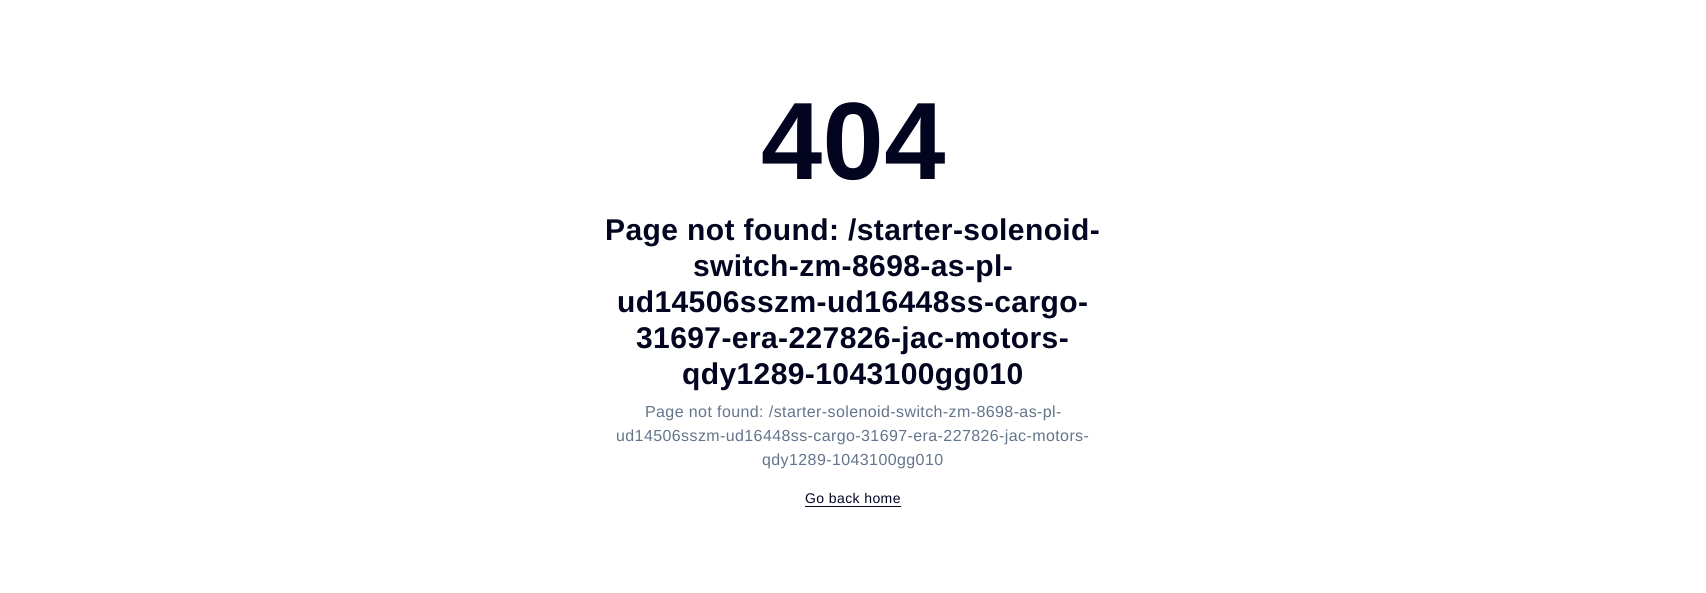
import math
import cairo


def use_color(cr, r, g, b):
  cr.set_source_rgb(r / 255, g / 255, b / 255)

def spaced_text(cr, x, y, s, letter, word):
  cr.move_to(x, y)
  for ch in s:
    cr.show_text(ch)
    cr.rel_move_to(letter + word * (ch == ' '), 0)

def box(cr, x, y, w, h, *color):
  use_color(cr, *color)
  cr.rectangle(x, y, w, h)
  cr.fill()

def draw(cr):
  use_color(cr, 255, 255, 255)
  cr.paint()
  box(cr, 805, 506, 96, 1, 2, 4, 32)
  cr.select_font_face("Liberation Sans", cairo.FONT_SLANT_NORMAL, cairo.FONT_WEIGHT_BOLD)
  cr.set_font_size(110)
  spaced_text(cr, 761, 179, "404", 0.4, 0)
  cr.set_font_size(30)
  spaced_text(cr, 605, 240, "Page not found: /starter-solenoid-", 0.4, 0)
  spaced_text(cr, 693, 276, "switch-zm-8698-as-pl-", 0.4, 0)
  spaced_text(cr, 617, 312, "ud14506sszm-ud16448ss-cargo-", 0.4, 0)
  spaced_text(cr, 636, 348, "31697-era-227826-jac-motors-", 0.4, 0)
  spaced_text(cr, 682, 384, "qdy1289-1043100gg010", 0.4, 0)
  cr.select_font_face("Liberation Sans")
  cr.set_font_size(16)
  use_color(cr, 100, 116, 139)
  spaced_text(cr, 645, 417, "Page not found: /starter-solenoid-switch-zm-8698-as-pl-", 0.4, 0)
  spaced_text(cr, 616, 441, "ud14506sszm-ud16448ss-cargo-31697-era-227826-jac-motors-", 0.4, 0)
  spaced_text(cr, 762, 465, "qdy1289-1043100gg010", 0.4, 0)
  cr.set_font_size(14)
  use_color(cr, 2, 4, 32)
  spaced_text(cr, 805, 503, "Go back home", 0.4, 0)


surface = cairo.ImageSurface(cairo.FORMAT_RGB24, 1706, 593)
cr = cairo.Context(surface)
options = cairo.FontOptions()
options.set_hint_metrics(cairo.HINT_METRICS_OFF)
options.set_hint_style(cairo.HINT_STYLE_NONE)
cr.set_font_options(options)
cr.set_miter_limit(4)
draw(cr)
surface.write_to_png("out.png")
